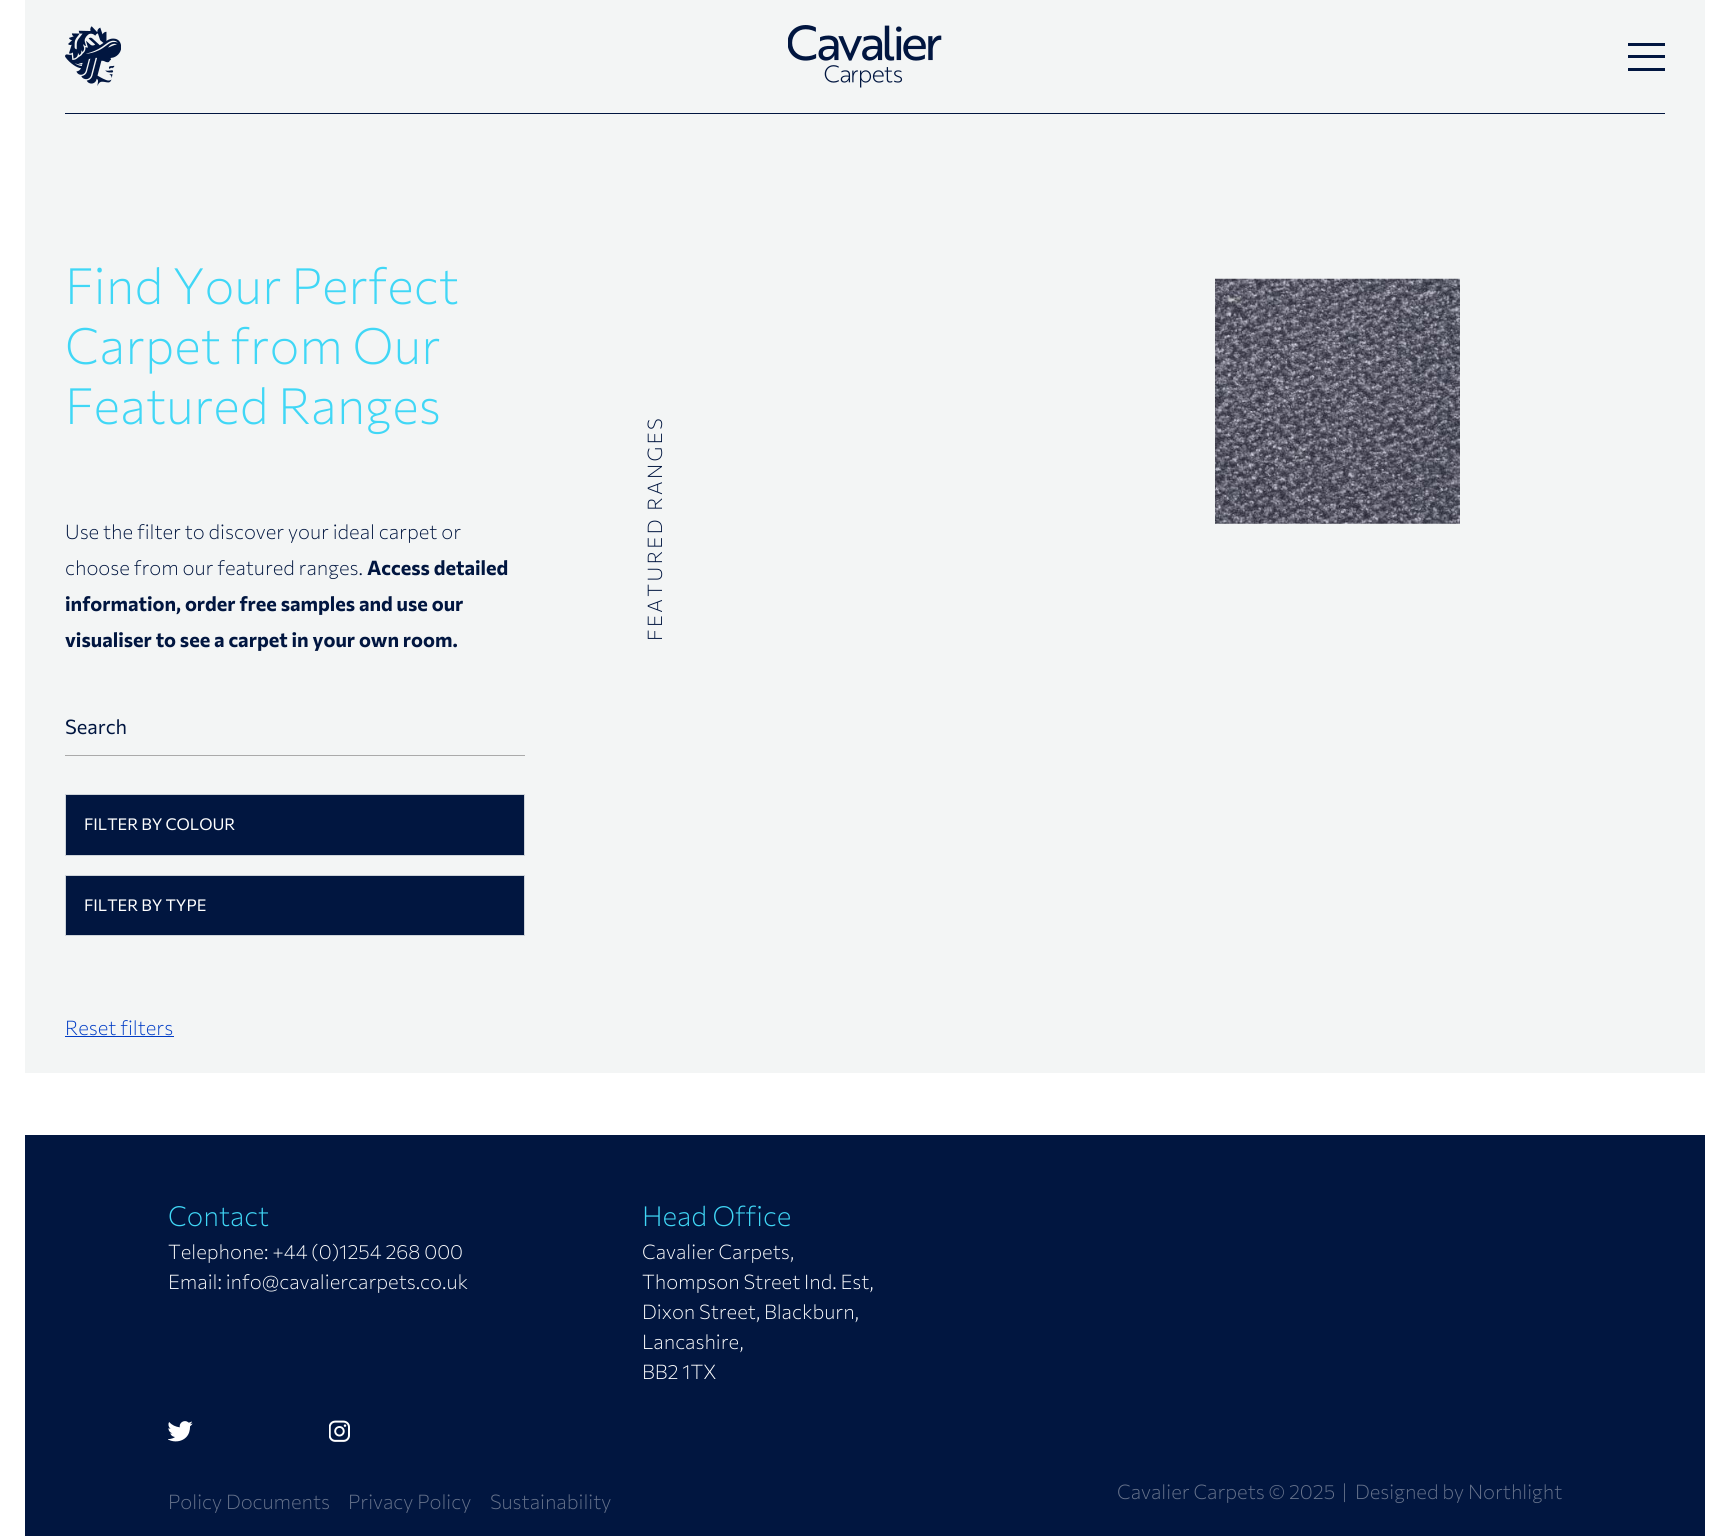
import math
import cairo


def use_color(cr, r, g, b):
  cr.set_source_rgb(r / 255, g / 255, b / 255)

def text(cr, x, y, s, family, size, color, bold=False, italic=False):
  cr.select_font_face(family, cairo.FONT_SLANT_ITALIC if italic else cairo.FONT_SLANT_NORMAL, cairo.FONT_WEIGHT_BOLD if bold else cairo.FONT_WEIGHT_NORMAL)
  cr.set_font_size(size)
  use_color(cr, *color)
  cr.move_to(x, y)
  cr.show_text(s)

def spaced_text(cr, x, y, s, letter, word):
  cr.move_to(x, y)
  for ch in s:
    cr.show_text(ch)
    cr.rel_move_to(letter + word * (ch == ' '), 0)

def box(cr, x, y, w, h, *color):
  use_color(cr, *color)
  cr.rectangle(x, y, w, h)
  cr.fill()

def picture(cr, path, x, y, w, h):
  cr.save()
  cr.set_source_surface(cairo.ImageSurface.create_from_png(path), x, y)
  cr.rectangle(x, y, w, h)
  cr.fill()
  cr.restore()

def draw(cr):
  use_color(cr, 255, 255, 255)
  cr.paint()
  box(cr, 25, 0, 1680, 1073, 243, 245, 245)
  box(cr, 65, 113, 1600, 1, 1, 22, 64)
  picture(cr, "img_01.png", 65, 26, 56, 60)
  picture(cr, "img_02.png", 788, 25, 154, 63)
  box(cr, 1628, 43, 37, 3, 1, 22, 64)
  box(cr, 1628, 55, 37, 3, 1, 22, 64)
  box(cr, 1628, 68, 37, 3, 1, 22, 64)
  box(cr, 65, 755, 460, 1, 170, 170, 170)
  use_color(cr, 1, 22, 64)
  cr.rectangle(65.5, 794.5, 459, 61)
  cr.fill_preserve()
  use_color(cr, 206, 212, 218)
  cr.set_line_width(1)
  cr.stroke()
  use_color(cr, 1, 22, 64)
  cr.rectangle(65.5, 875.5, 459, 60)
  cr.fill_preserve()
  use_color(cr, 206, 212, 218)
  cr.stroke()
  box(cr, 65, 1036, 109, 1, 0, 60, 197)
  picture(cr, "img_03.png", 1215, 278, 245, 246)
  box(cr, 25, 1135, 1680, 401, 1, 22, 64)
  picture(cr, "img_04.png", 168, 1421, 25, 21)
  picture(cr, "img_05.png", 329, 1420, 21, 22)
  text(cr, 65, 304, "Find Your Perfect", "Commissioner ExtraLight", 50, (64, 215, 246))
  text(cr, 65, 364, "Carpet from Our", "Commissioner ExtraLight", 50, (64, 215, 246))
  text(cr, 65, 424, "Featured Ranges", "Commissioner ExtraLight", 50, (64, 215, 246))
  text(cr, 65, 539, "Use the filter to discover your ideal carpet or", "Commissioner ExtraLight", 20, (1, 22, 64))
  text(cr, 65, 575, "choose from our featured ranges.", "Commissioner ExtraLight", 20, (1, 22, 64))
  text(cr, 367, 575, "Access detailed", "Commissioner", 20, (1, 22, 64), bold=True)
  text(cr, 65, 611, "information, order free samples and use our", "Commissioner", 20, (1, 22, 64), bold=True)
  text(cr, 65, 647, "visualiser to see a carpet in your own room.", "Commissioner", 20, (1, 22, 64), bold=True)
  text(cr, 65, 734, "Search", "Commissioner", 20, (1, 22, 64))
  text(cr, 84, 830, "FILTER BY COLOUR", "Commissioner", 16.25, (255, 255, 255))
  text(cr, 84, 911, "FILTER BY TYPE", "Commissioner", 16.25, (255, 255, 255))
  text(cr, 65, 1035, "Reset filters", "Commissioner ExtraLight", 20, (0, 60, 197))
  use_color(cr, 1, 22, 64)
  cr.save()
  cr.translate(662, 641)
  cr.rotate(-90 * math.pi / 180)
  spaced_text(cr, 0, 0, "FEATURED RANGES", 2.5, 0)
  cr.restore()
  text(cr, 168, 1226, "Contact", "Commissioner ExtraLight", 27.5, (64, 215, 246))
  text(cr, 168, 1259, "Telephone: +44 (0)1254 268 000", "Commissioner ExtraLight", 20, (255, 255, 255))
  text(cr, 168, 1289, "Email: info@cavaliercarpets.co.uk", "Commissioner ExtraLight", 20, (255, 255, 255))
  text(cr, 642, 1226, "Head Office", "Commissioner ExtraLight", 27.5, (64, 215, 246))
  text(cr, 642, 1259, "Cavalier Carpets,", "Commissioner ExtraLight", 20, (255, 255, 255))
  text(cr, 642, 1289, "Thompson Street Ind. Est,", "Commissioner ExtraLight", 20, (255, 255, 255))
  text(cr, 642, 1319, "Dixon Street, Blackburn,", "Commissioner ExtraLight", 20, (255, 255, 255))
  text(cr, 642, 1349, "Lancashire,", "Commissioner ExtraLight", 20, (255, 255, 255))
  text(cr, 642, 1379, "BB2 1TX", "Commissioner ExtraLight", 20, (255, 255, 255))
  text(cr, 168, 1509, "Policy Documents", "Commissioner ExtraLight", 20, (103, 115, 140))
  text(cr, 348, 1509, "Privacy Policy", "Commissioner ExtraLight", 20, (103, 115, 140))
  text(cr, 490, 1509, "Sustainability", "Commissioner ExtraLight", 20, (103, 115, 140))
  text(cr, 1117, 1499, "Cavalier Carpets © 2025", "Commissioner ExtraLight", 20, (103, 115, 140))
  text(cr, 1342, 1499, "|", "Commissioner ExtraLight", 20, (103, 115, 140))
  text(cr, 1355, 1499, "Designed by Northlight", "Commissioner ExtraLight", 20, (103, 115, 140))


surface = cairo.ImageSurface(cairo.FORMAT_RGB24, 1730, 1536)
cr = cairo.Context(surface)
options = cairo.FontOptions()
options.set_hint_metrics(cairo.HINT_METRICS_OFF)
options.set_hint_style(cairo.HINT_STYLE_NONE)
cr.set_font_options(options)
cr.set_miter_limit(4)
draw(cr)
surface.write_to_png("out.png")
